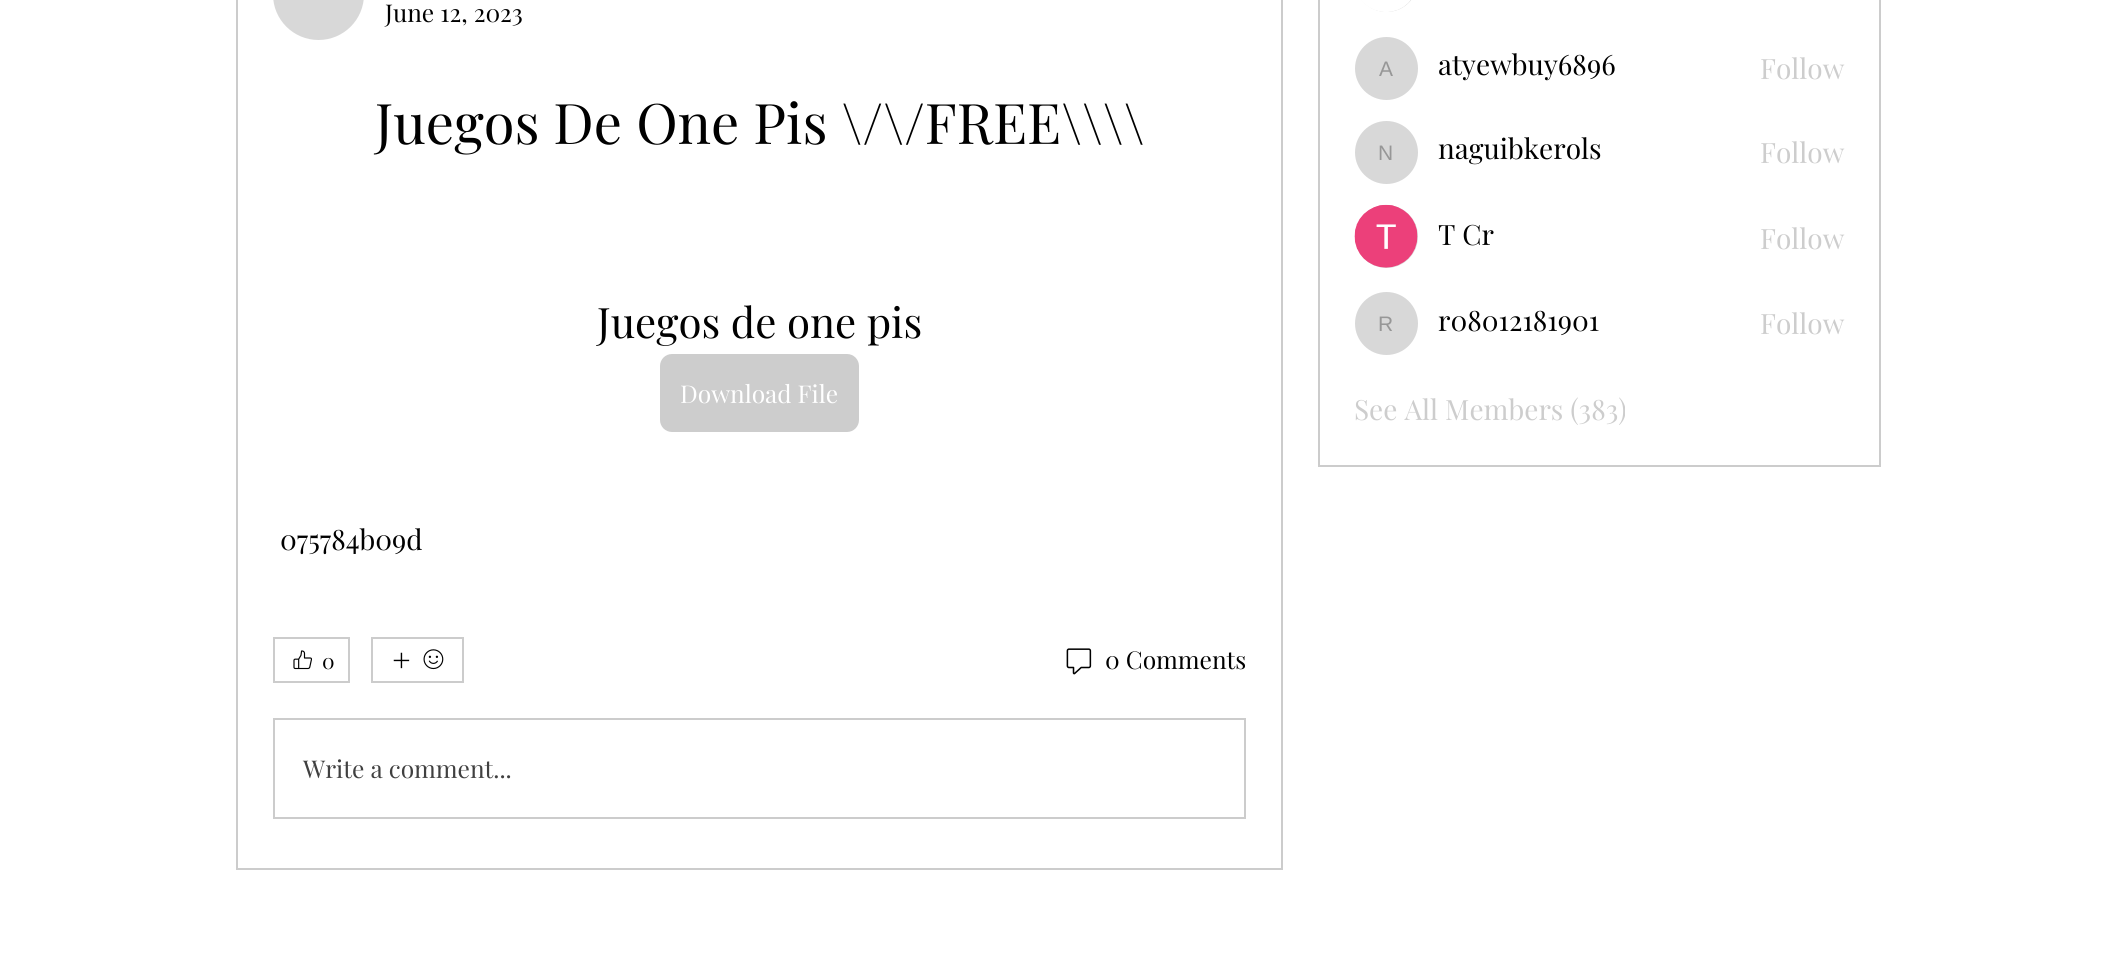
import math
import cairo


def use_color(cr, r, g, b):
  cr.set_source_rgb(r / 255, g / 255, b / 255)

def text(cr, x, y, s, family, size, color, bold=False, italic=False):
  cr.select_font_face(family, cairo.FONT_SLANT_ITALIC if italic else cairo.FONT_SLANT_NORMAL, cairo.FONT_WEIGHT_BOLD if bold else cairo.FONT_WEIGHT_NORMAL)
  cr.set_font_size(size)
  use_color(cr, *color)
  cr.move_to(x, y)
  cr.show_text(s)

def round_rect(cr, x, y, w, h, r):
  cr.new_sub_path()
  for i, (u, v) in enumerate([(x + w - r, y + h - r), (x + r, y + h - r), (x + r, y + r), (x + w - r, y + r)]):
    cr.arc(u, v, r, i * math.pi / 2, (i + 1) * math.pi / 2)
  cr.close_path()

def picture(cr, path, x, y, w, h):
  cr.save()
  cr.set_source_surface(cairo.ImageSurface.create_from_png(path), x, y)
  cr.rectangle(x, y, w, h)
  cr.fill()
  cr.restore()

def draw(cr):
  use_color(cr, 255, 255, 255)
  cr.paint()
  cr.rectangle(237, -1, 1045, 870)
  use_color(cr, 204, 204, 204)
  cr.stroke()
  use_color(cr, 216, 216, 216)
  round_rect(cr, 273, -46, 91, 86, 45.5)
  cr.fill()
  use_color(cr, 205, 205, 205)
  round_rect(cr, 659, 353, 201, 80, 13)
  cr.fill_preserve()
  use_color(cr, 255, 255, 255)
  cr.stroke()
  cr.rectangle(274, 638, 75, 44)
  use_color(cr, 204, 204, 204)
  cr.stroke()
  picture(cr, "img_01.png", 293, 650, 19, 20)
  cr.rectangle(372, 638, 91, 44)
  cr.stroke()
  picture(cr, "img_02.png", 393, 652, 17, 17)
  picture(cr, "img_03.png", 423, 649, 21, 21)
  picture(cr, "img_04.png", 1066, 648, 26, 27)
  cr.rectangle(274, 719, 971, 99)
  cr.stroke()
  cr.rectangle(1319, -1, 561, 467)
  cr.stroke()
  use_color(cr, 216, 216, 216)
  round_rect(cr, 1355, -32, 63, 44, 31.5)
  cr.fill()
  picture(cr, "img_05.png", 1362, 0, 49, 12)
  cr.arc(1386.5, 68.5, 31.5, 0, 2 * math.pi)
  cr.fill()
  cr.arc(1386.5, 152.5, 31.5, 0, 2 * math.pi)
  cr.fill()
  cr.arc(1386.5, 236.5, 31.5, 0, 2 * math.pi)
  cr.fill()
  picture(cr, "img_06.png", 1354, 204, 64, 64)
  cr.arc(1386.5, 323.5, 31.5, 0, 2 * math.pi)
  cr.fill()
  text(cr, 385, 22, "June 12, 2023", "Playfair Display", 24.5, (0, 0, 0))
  text(cr, 375, 144, "Juegos De One Pis \\/\\/FREE\\\\\\\\", "Playfair Display", 56, (0, 0, 0))
  text(cr, 597, 338, "Juegos de one pis", "Playfair Display", 42, (0, 0, 0))
  text(cr, 680, 403, "Download File", "Playfair Display", 24.5, (255, 255, 255))
  text(cr, 280, 550, "075784b09d", "Playfair Display", 28, (0, 0, 0))
  text(cr, 322, 669, "0", "Playfair Display", 21, (0, 0, 0))
  text(cr, 1105, 669, "0 Comments", "Playfair Display", 24.5, (0, 0, 0))
  text(cr, 303, 778, "Write a comment...", "Playfair Display", 24.5, (64, 64, 64))
  text(cr, 1379, 76, "A", "Liberation Sans", 21, (151, 151, 151))
  text(cr, 1438, 75, "atyewbuy6896", "Playfair Display", 28, (0, 0, 0))
  text(cr, 1760, 79, "Follow", "Playfair Display", 28, (205, 205, 205))
  text(cr, 1378, 160, "N", "Liberation Sans", 21, (151, 151, 151))
  text(cr, 1438, 159, "naguibkerols", "Playfair Display", 28, (0, 0, 0))
  text(cr, 1760, 163, "Follow", "Playfair Display", 28, (205, 205, 205))
  text(cr, 1438, 245, "T Cr", "Playfair Display", 28, (0, 0, 0))
  text(cr, 1760, 249, "Follow", "Playfair Display", 28, (205, 205, 205))
  text(cr, 1378, 331, "R", "Liberation Sans", 21, (151, 151, 151))
  text(cr, 1438, 331, "r08012181901", "Playfair Display", 28, (0, 0, 0))
  text(cr, 1760, 334, "Follow", "Playfair Display", 28, (205, 205, 205))
  text(cr, 1354, 420, "See All Members (383)", "Playfair Display", 28, (205, 205, 205))


surface = cairo.ImageSurface(cairo.FORMAT_RGB24, 2116, 956)
cr = cairo.Context(surface)
options = cairo.FontOptions()
options.set_hint_metrics(cairo.HINT_METRICS_OFF)
options.set_hint_style(cairo.HINT_STYLE_NONE)
cr.set_font_options(options)
cr.set_miter_limit(4)
draw(cr)
surface.write_to_png("out.png")
